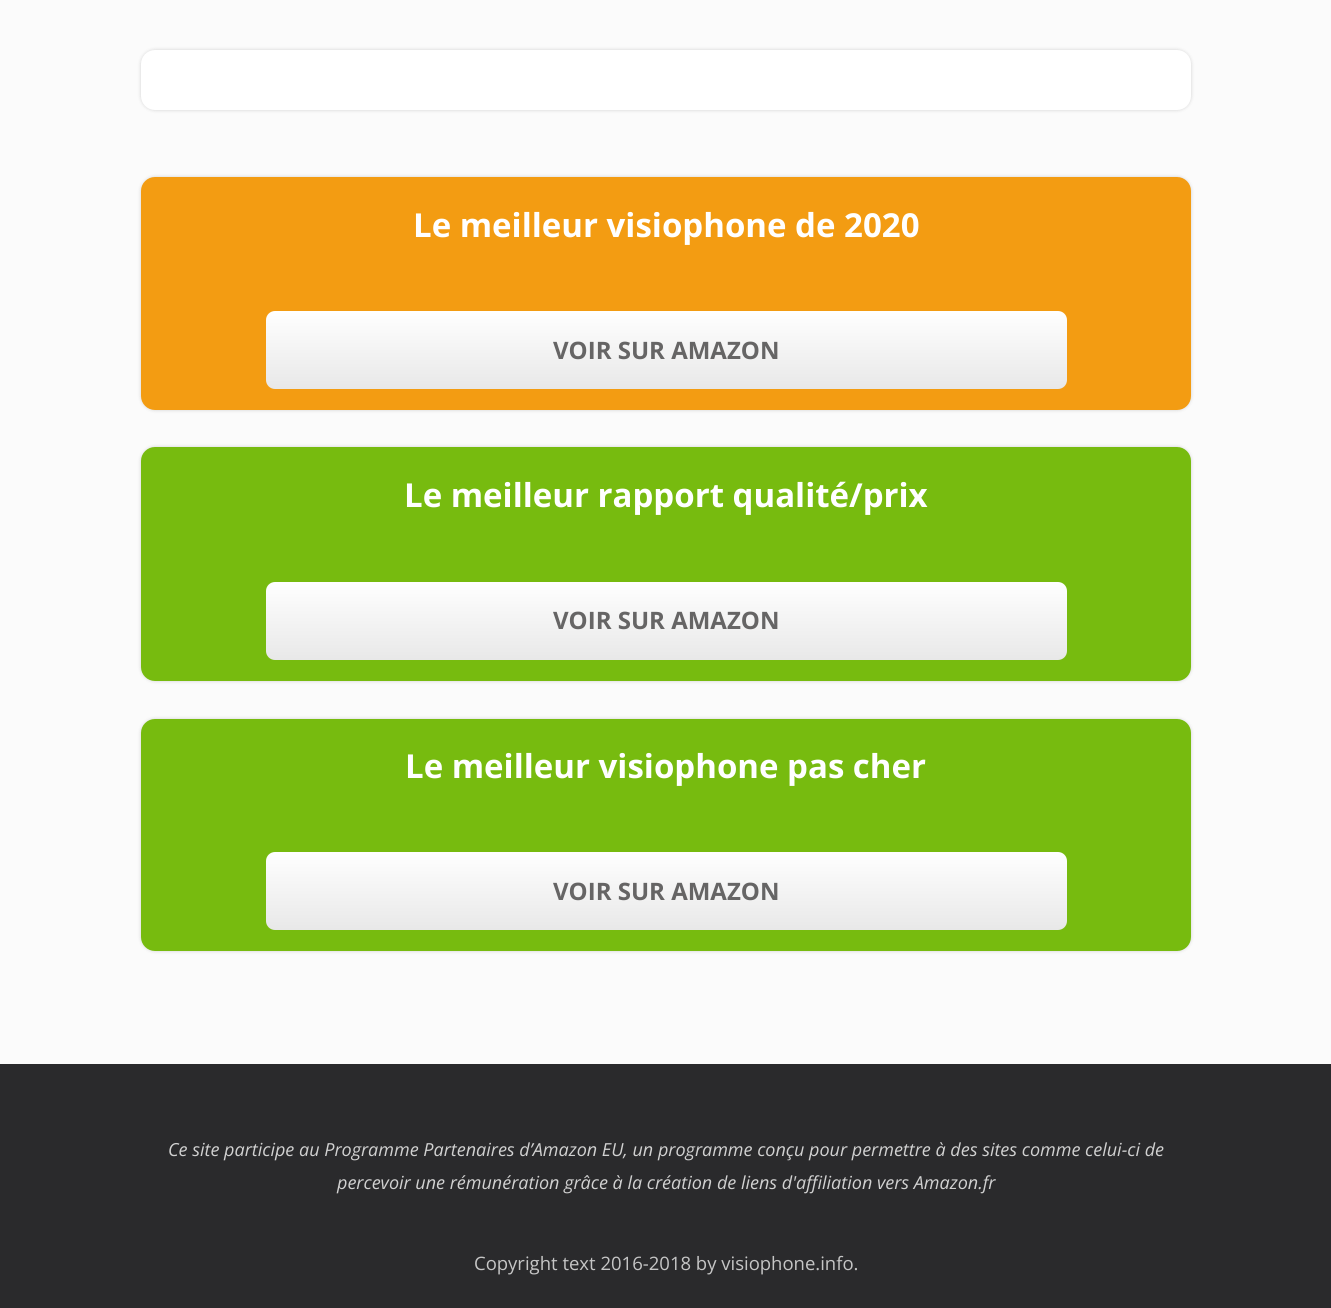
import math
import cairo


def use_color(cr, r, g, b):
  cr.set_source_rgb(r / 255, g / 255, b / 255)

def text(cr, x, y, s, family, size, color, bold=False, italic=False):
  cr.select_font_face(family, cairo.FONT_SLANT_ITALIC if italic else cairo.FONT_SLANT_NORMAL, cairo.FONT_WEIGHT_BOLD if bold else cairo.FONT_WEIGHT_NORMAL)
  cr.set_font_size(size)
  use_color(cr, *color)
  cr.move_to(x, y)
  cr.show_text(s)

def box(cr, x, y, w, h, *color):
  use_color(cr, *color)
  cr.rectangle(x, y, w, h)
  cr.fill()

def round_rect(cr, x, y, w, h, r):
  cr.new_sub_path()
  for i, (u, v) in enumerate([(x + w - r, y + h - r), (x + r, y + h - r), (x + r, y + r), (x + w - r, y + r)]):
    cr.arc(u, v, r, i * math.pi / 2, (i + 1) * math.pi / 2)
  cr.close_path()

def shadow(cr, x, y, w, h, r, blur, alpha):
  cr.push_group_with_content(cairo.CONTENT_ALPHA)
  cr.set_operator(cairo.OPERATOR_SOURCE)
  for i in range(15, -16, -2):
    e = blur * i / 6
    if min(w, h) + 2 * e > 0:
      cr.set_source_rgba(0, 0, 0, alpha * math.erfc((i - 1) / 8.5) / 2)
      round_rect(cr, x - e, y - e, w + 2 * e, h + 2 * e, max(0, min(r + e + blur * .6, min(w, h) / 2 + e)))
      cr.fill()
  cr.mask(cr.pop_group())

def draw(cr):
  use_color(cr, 251, 251, 251)
  cr.paint()
  use_color(cr, 1, 1, 1)
  shadow(cr, 141, 50, 1050, 60, 14, 2, 0.16)
  use_color(cr, 255, 255, 255)
  round_rect(cr, 141, 50, 1050, 60, 14)
  cr.fill()
  use_color(cr, 1, 1, 1)
  shadow(cr, 141, 177, 1050, 233, 14, 2, 0.16)
  use_color(cr, 243, 156, 18)
  round_rect(cr, 141, 177, 1050, 233, 14)
  cr.fill()
  gradient = cairo.LinearGradient(666, 389, 666, 311)
  gradient.add_color_stop_rgba(0, 0.91, 0.91, 0.91, 1)
  gradient.add_color_stop_rgba(1, 1, 1, 1, 1)
  cr.set_source(gradient)
  round_rect(cr, 266, 311, 801, 78, 9)
  cr.fill()
  use_color(cr, 1, 1, 1)
  shadow(cr, 141, 447, 1050, 234, 14, 2, 0.16)
  use_color(cr, 119, 187, 15)
  round_rect(cr, 141, 447, 1050, 234, 14)
  cr.fill()
  gradient = cairo.LinearGradient(666, 660, 666, 582)
  gradient.add_color_stop_rgba(0, 0.91, 0.91, 0.91, 1)
  gradient.add_color_stop_rgba(1, 1, 1, 1, 1)
  cr.set_source(gradient)
  round_rect(cr, 266, 582, 801, 78, 9)
  cr.fill()
  use_color(cr, 1, 1, 1)
  shadow(cr, 141, 719, 1050, 232, 14, 2, 0.16)
  use_color(cr, 119, 187, 15)
  round_rect(cr, 141, 719, 1050, 232, 14)
  cr.fill()
  gradient = cairo.LinearGradient(666, 930, 666, 852)
  gradient.add_color_stop_rgba(0, 0.91, 0.91, 0.91, 1)
  gradient.add_color_stop_rgba(1, 1, 1, 1, 1)
  cr.set_source(gradient)
  round_rect(cr, 266, 852, 801, 78, 9)
  cr.fill()
  box(cr, 0, 1064, 1331, 244, 42, 42, 44)
  text(cr, 413, 237, "Le meilleur visiophone de 2020", "Open Sans", 33, (255, 255, 255), bold=True)
  text(cr, 553, 359, "VOIR SUR AMAZON", "Open Sans", 24, (102, 101, 101), bold=True)
  text(cr, 404, 507, "Le meilleur rapport qualité/prix", "Open Sans", 33, (255, 255, 255), bold=True)
  text(cr, 553, 629, "VOIR SUR AMAZON", "Open Sans", 24, (102, 101, 101), bold=True)
  text(cr, 405, 778, "Le meilleur visiophone pas cher", "Open Sans", 33, (255, 255, 255), bold=True)
  text(cr, 553, 900, "VOIR SUR AMAZON", "Open Sans", 24, (102, 101, 101), bold=True)
  text(cr, 168, 1156, "Ce site participe au Programme Partenaires d’Amazon EU, un programme conçu pour permettre à des sites comme celui-ci de", "Open Sans", 18, (209, 209, 209), italic=True)
  text(cr, 337, 1189, "percevoir une rémunération grâce à la création de liens d'affiliation vers Amazon.fr", "Open Sans", 18, (209, 209, 209), italic=True)
  text(cr, 474, 1270, "Copyright text 2016-2018 by visiophone.info.", "Open Sans", 18.5, (197, 197, 197))


surface = cairo.ImageSurface(cairo.FORMAT_RGB24, 1331, 1308)
cr = cairo.Context(surface)
options = cairo.FontOptions()
options.set_hint_metrics(cairo.HINT_METRICS_OFF)
options.set_hint_style(cairo.HINT_STYLE_NONE)
cr.set_font_options(options)
cr.set_miter_limit(4)
draw(cr)
surface.write_to_png("out.png")
